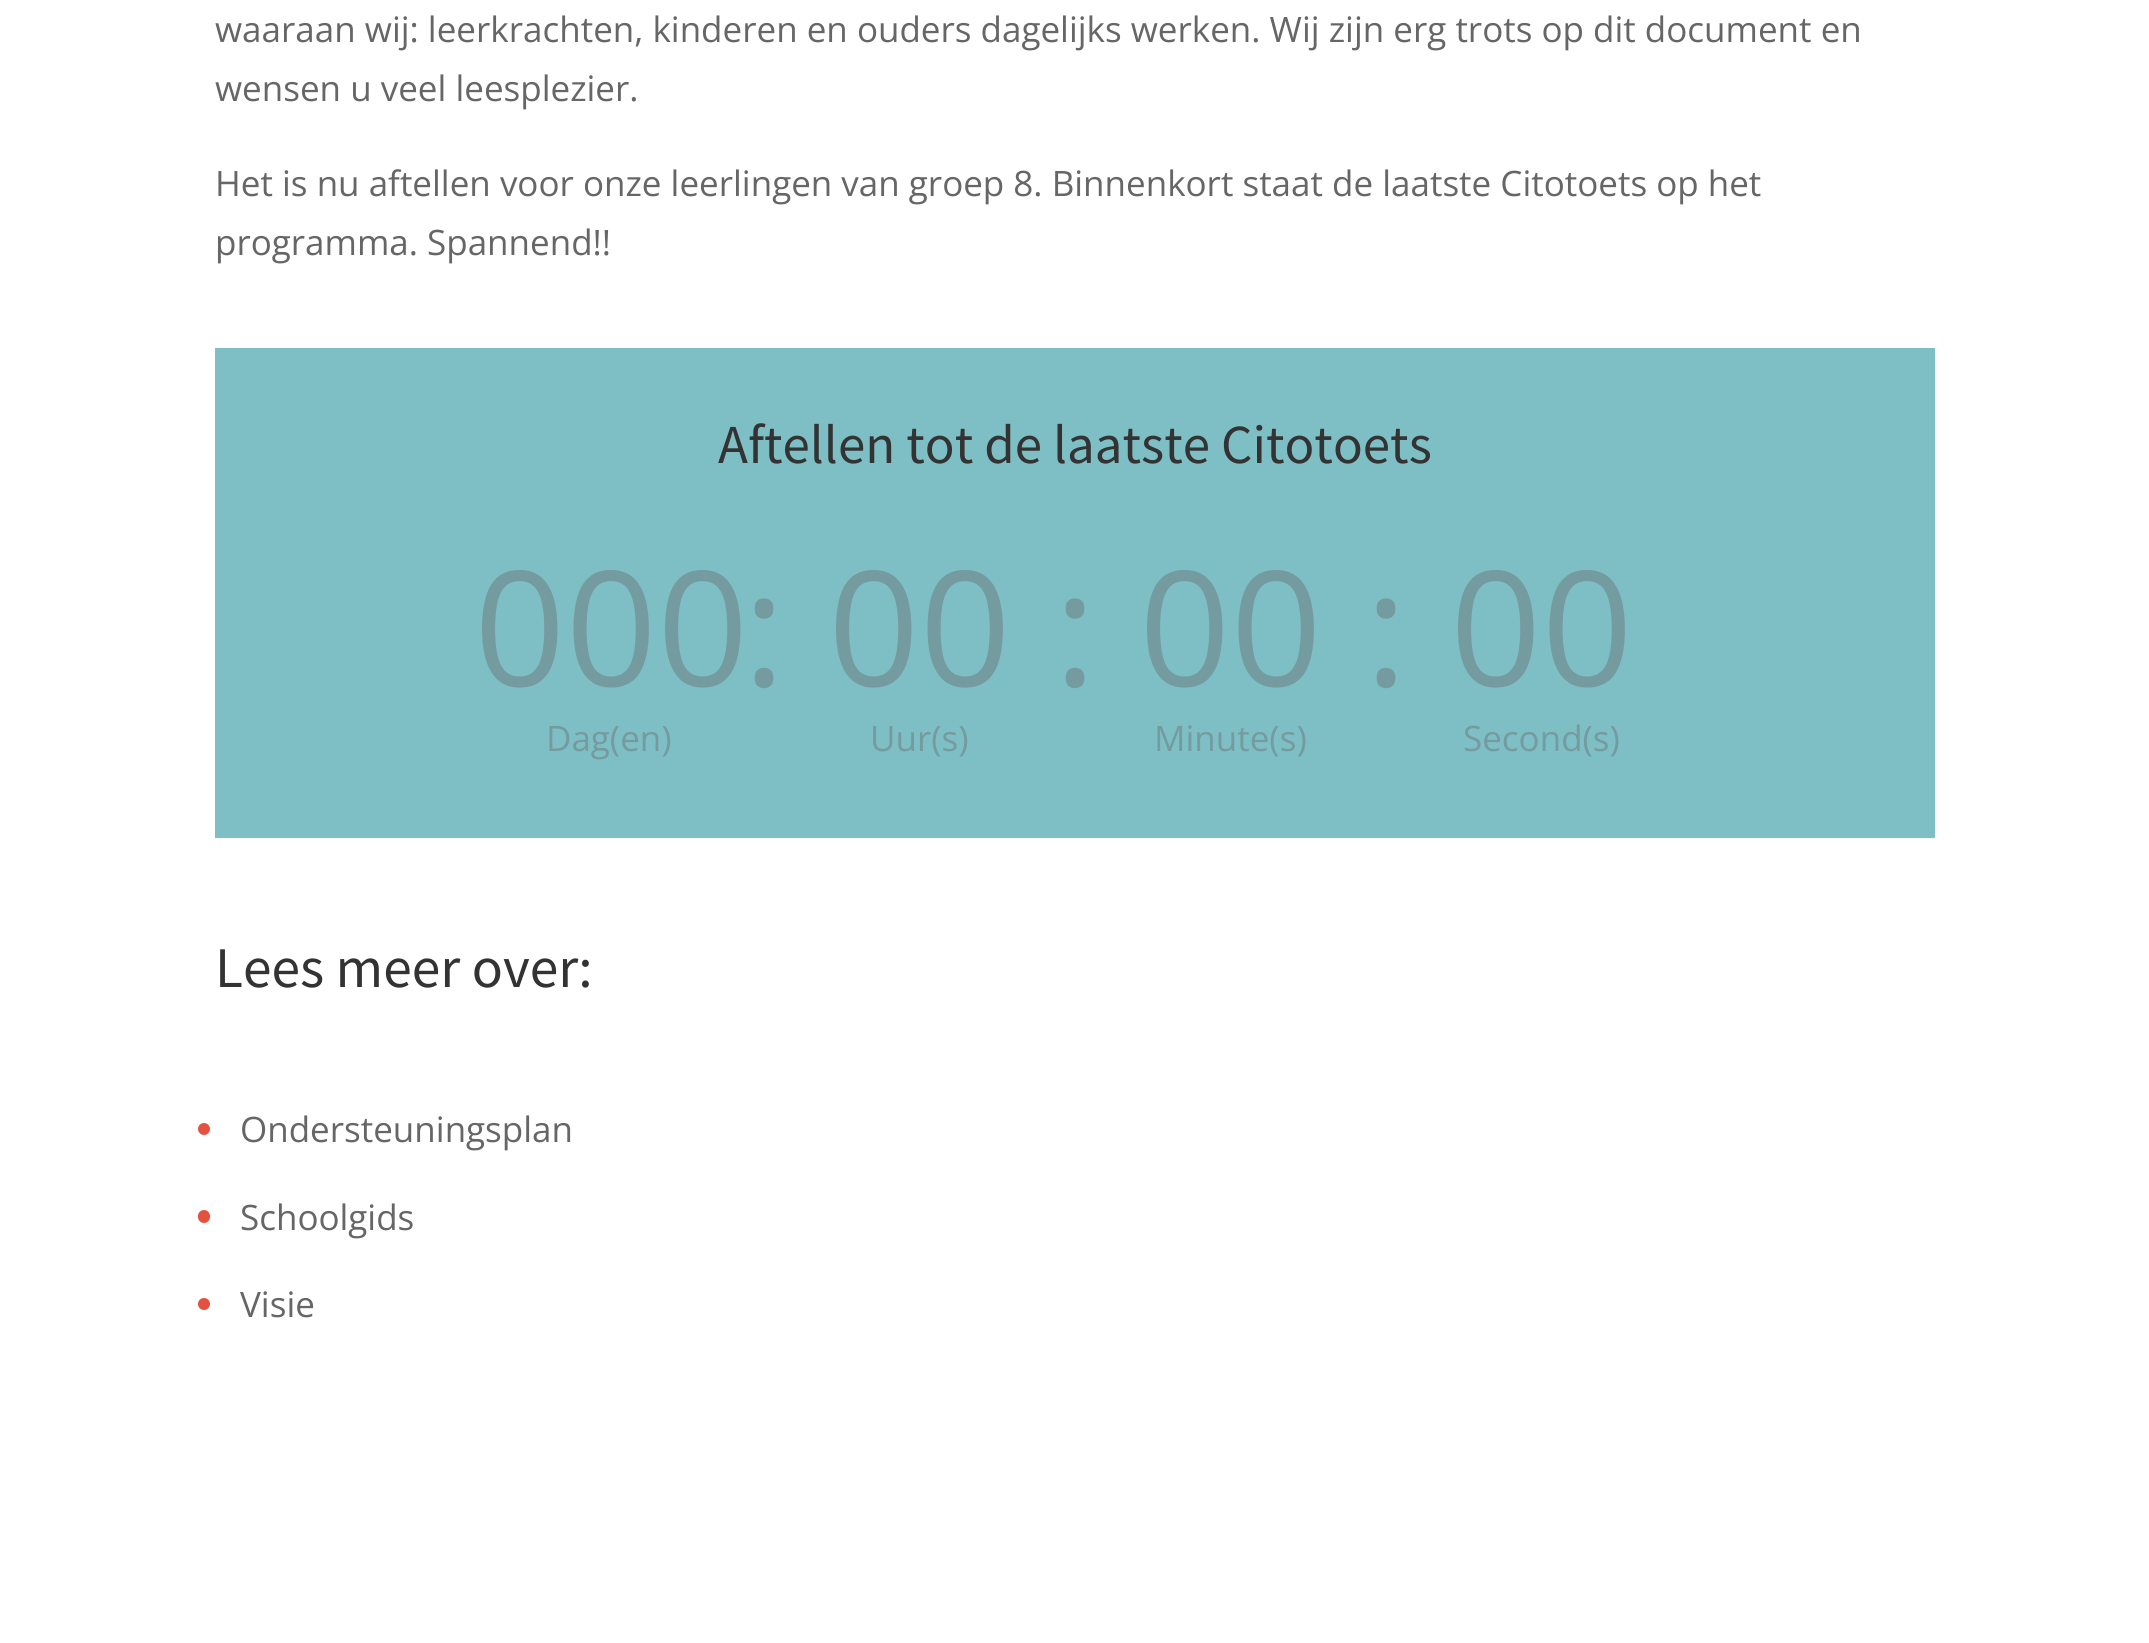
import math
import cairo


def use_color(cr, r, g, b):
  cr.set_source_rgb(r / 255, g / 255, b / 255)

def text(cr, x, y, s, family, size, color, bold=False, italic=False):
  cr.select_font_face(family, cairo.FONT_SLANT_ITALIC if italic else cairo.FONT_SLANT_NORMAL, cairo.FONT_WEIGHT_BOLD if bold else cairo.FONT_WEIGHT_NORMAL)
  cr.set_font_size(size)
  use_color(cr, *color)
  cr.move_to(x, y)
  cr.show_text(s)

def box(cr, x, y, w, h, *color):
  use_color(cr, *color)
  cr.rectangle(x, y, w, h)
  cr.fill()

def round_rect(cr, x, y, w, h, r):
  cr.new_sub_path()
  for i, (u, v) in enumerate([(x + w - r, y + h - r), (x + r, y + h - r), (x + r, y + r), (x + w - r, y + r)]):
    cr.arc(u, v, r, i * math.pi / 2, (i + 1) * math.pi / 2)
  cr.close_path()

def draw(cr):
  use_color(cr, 255, 255, 255)
  cr.paint()
  box(cr, 215, 348, 1720, 490, 126, 190, 197)
  use_color(cr, 228, 81, 63)
  cr.arc(204, 1129, 6, 0, 2 * math.pi)
  cr.fill()
  round_rect(cr, 198, 1210, 12, 13, 6)
  cr.fill()
  cr.arc(204, 1304, 6, 0, 2 * math.pi)
  cr.fill()
  text(cr, 215, 42, "waaraan wij: leerkrachten, kinderen en ouders dagelijks werken. Wij zijn erg trots op dit document en", "Open Sans", 35, (102, 102, 102))
  text(cr, 215, 101, "wensen u veel leesplezier.", "Open Sans", 35, (102, 102, 102))
  text(cr, 215, 196, "Het is nu aftellen voor onze leerlingen van groep 8. Binnenkort staat de laatste Citotoets op het", "Open Sans", 35, (102, 102, 102))
  text(cr, 215, 255, "programma. Spannend!!", "Open Sans", 35, (102, 102, 102))
  text(cr, 718, 463, "Aftellen tot de laatste Citotoets", "Source Sans Pro", 55, (51, 51, 51))
  text(cr, 474, 686, "000", "Open Sans", 160, (116, 155, 159))
  text(cr, 546, 751, "Dag(en)", "Open Sans", 35, (116, 155, 159))
  text(cr, 743, 686, ":", "Open Sans", 160, (116, 155, 159))
  text(cr, 828, 686, "00", "Open Sans", 160, (116, 155, 159))
  text(cr, 870, 751, "Uur(s)", "Open Sans", 35, (116, 155, 159))
  text(cr, 1054, 686, ":", "Open Sans", 160, (116, 155, 159))
  text(cr, 1139, 686, "00", "Open Sans", 160, (116, 155, 159))
  text(cr, 1154, 751, "Minute(s)", "Open Sans", 35, (116, 155, 159))
  text(cr, 1365, 686, ":", "Open Sans", 160, (116, 155, 159))
  text(cr, 1450, 686, "00", "Open Sans", 160, (116, 155, 159))
  text(cr, 1463, 751, "Second(s)", "Open Sans", 35, (116, 155, 159))
  text(cr, 215, 987, "Lees meer over:", "Source Sans Pro", 57.5, (51, 51, 51))
  text(cr, 240, 1142, "Ondersteuningsplan", "Open Sans", 35, (102, 102, 102))
  text(cr, 240, 1230, "Schoolgids", "Open Sans", 35, (102, 102, 102))
  text(cr, 240, 1317, "Visie", "Open Sans", 35, (102, 102, 102))


surface = cairo.ImageSurface(cairo.FORMAT_RGB24, 2149, 1643)
cr = cairo.Context(surface)
options = cairo.FontOptions()
options.set_hint_metrics(cairo.HINT_METRICS_OFF)
options.set_hint_style(cairo.HINT_STYLE_NONE)
cr.set_font_options(options)
cr.set_miter_limit(4)
draw(cr)
surface.write_to_png("out.png")
